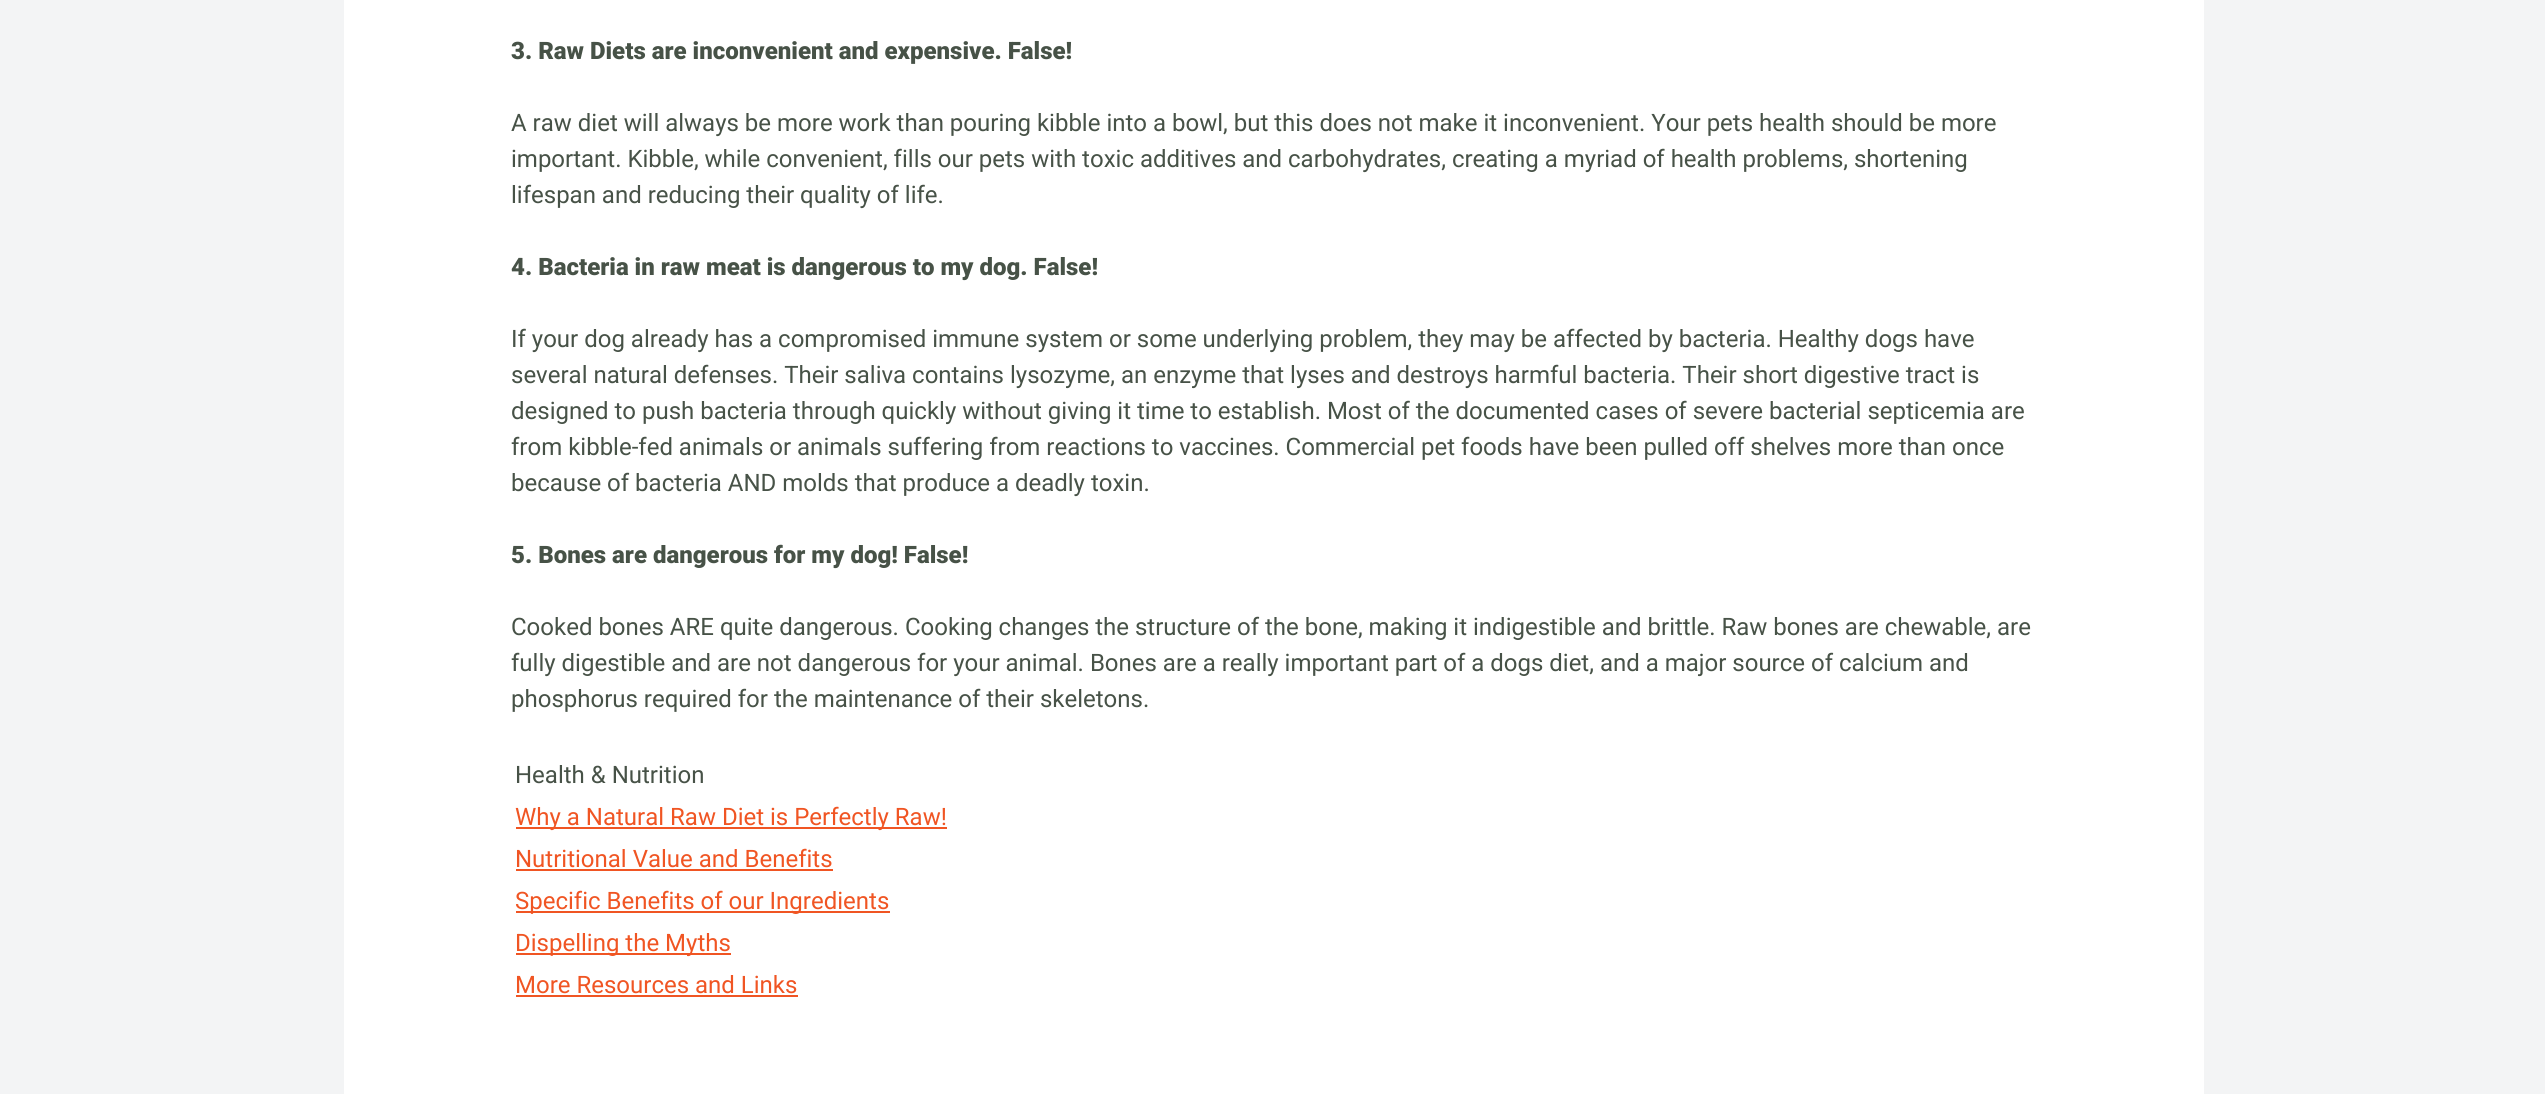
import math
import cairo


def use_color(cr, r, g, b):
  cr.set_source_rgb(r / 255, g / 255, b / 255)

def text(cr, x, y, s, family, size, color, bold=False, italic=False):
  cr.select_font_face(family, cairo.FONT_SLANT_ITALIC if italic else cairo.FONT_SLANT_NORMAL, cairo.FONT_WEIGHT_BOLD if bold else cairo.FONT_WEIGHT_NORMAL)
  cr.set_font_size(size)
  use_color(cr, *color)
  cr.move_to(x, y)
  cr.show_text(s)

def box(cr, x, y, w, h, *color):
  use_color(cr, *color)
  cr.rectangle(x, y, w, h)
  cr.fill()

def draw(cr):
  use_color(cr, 243, 244, 245)
  cr.paint()
  box(cr, 344, 0, 1860, 1094, 255, 255, 255)
  box(cr, 516, 827, 431, 2, 240, 85, 35)
  box(cr, 516, 869, 317, 2, 240, 85, 35)
  box(cr, 516, 911, 374, 2, 240, 85, 35)
  box(cr, 516, 953, 215, 2, 240, 85, 35)
  box(cr, 516, 995, 282, 2, 240, 85, 35)
  text(cr, 511, 59, "3. Raw Diets are inconvenient and expensive. False!", "Roboto Black", 24, (71, 82, 71))
  text(cr, 511, 131, "A raw diet will always be more work than pouring kibble into a bowl, but this does not make it inconvenient. Your pets health should be more", "Roboto", 24, (71, 82, 71))
  text(cr, 511, 167, "important. Kibble, while convenient, fills our pets with toxic additives and carbohydrates, creating a myriad of health problems, shortening", "Roboto", 24, (71, 82, 71))
  text(cr, 511, 203, "lifespan and reducing their quality of life.", "Roboto", 24, (71, 82, 71))
  text(cr, 511, 275, "4. Bacteria in raw meat is dangerous to my dog. False!", "Roboto Black", 24, (71, 82, 71))
  text(cr, 511, 347, "If your dog already has a compromised immune system or some underlying problem, they may be affected by bacteria. Healthy dogs have", "Roboto", 24, (71, 82, 71))
  text(cr, 511, 383, "several natural defenses. Their saliva contains lysozyme, an enzyme that lyses and destroys harmful bacteria. Their short digestive tract is", "Roboto", 24, (71, 82, 71))
  text(cr, 511, 419, "designed to push bacteria through quickly without giving it time to establish. Most of the documented cases of severe bacterial septicemia are", "Roboto", 24, (71, 82, 71))
  text(cr, 511, 455, "from kibble-fed animals or animals suffering from reactions to vaccines. Commercial pet foods have been pulled off shelves more than once", "Roboto", 24, (71, 82, 71))
  text(cr, 511, 491, "because of bacteria AND molds that produce a deadly toxin.", "Roboto", 24, (71, 82, 71))
  text(cr, 511, 563, "5. Bones are dangerous for my dog! False!", "Roboto Black", 24, (71, 82, 71))
  text(cr, 511, 635, "Cooked bones ARE quite dangerous. Cooking changes the structure of the bone, making it indigestible and brittle. Raw bones are chewable, are", "Roboto", 24, (71, 82, 71))
  text(cr, 511, 671, "fully digestible and are not dangerous for your animal. Bones are a really important part of a dogs diet, and a major source of calcium and", "Roboto", 24, (71, 82, 71))
  text(cr, 511, 707, "phosphorus required for the maintenance of their skeletons.", "Roboto", 24, (71, 82, 71))
  text(cr, 515, 783, "Health & Nutrition", "Roboto", 24, (71, 82, 71))
  text(cr, 515, 825, "Why a Natural Raw Diet is Perfectly Raw!", "Roboto", 24, (240, 85, 35))
  text(cr, 515, 867, "Nutritional Value and Benefits", "Roboto", 24, (240, 85, 35))
  text(cr, 515, 909, "Specific Benefits of our Ingredients", "Roboto", 24, (240, 85, 35))
  text(cr, 515, 951, "Dispelling the Myths", "Roboto", 24, (240, 85, 35))
  text(cr, 515, 993, "More Resources and Links", "Roboto", 24, (240, 85, 35))


surface = cairo.ImageSurface(cairo.FORMAT_RGB24, 2545, 1094)
cr = cairo.Context(surface)
options = cairo.FontOptions()
options.set_hint_metrics(cairo.HINT_METRICS_OFF)
options.set_hint_style(cairo.HINT_STYLE_NONE)
cr.set_font_options(options)
cr.set_miter_limit(4)
draw(cr)
surface.write_to_png("out.png")
